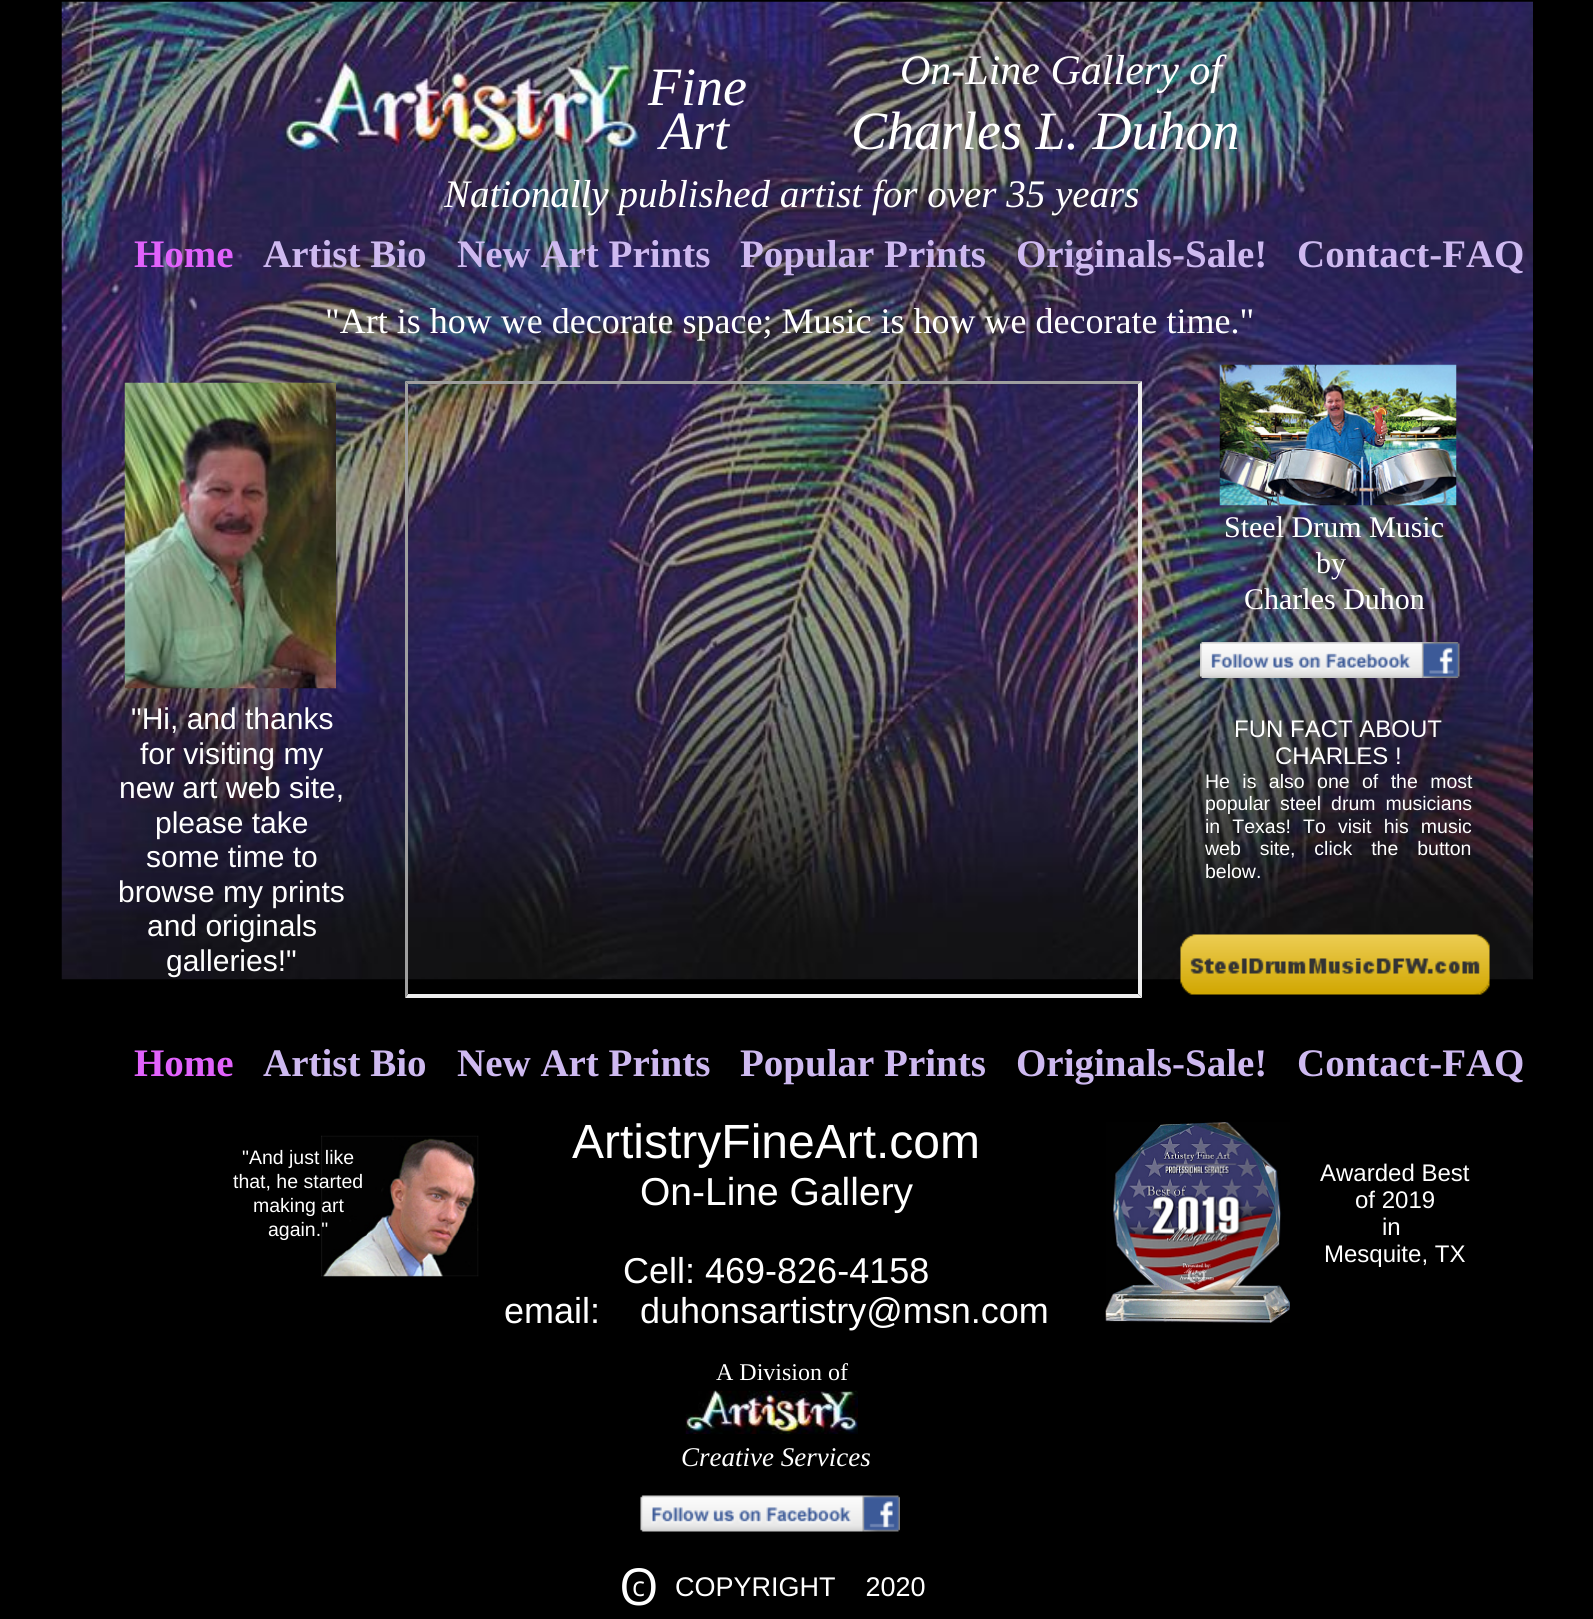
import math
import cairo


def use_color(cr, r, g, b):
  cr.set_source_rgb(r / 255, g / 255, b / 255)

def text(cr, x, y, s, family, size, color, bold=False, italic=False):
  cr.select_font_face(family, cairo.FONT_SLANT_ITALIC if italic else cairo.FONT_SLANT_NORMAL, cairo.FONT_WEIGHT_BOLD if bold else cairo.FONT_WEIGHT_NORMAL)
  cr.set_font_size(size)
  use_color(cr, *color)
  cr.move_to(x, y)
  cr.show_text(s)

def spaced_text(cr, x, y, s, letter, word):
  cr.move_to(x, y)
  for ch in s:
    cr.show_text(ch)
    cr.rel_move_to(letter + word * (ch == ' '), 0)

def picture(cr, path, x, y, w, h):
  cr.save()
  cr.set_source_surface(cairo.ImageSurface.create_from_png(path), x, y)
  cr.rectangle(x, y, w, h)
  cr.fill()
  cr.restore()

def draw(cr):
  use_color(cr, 0, 0, 0)
  cr.paint()
  picture(cr, "img_01.png", 61, 1, 1472, 979)
  picture(cr, "img_02.png", 124, 382, 212, 307)
  use_color(cr, 159, 159, 159)
  cr.new_path()
  cr.move_to(405, 381)
  cr.line_to(1142, 381)
  cr.line_to(1138, 384)
  cr.line_to(408, 384)
  cr.close_path()
  cr.fill()
  use_color(cr, 238, 238, 238)
  cr.new_path()
  cr.move_to(1142, 381)
  cr.line_to(1142, 998)
  cr.line_to(1138, 994)
  cr.line_to(1138, 384)
  cr.close_path()
  cr.fill()
  cr.new_path()
  cr.move_to(1142, 998)
  cr.line_to(405, 998)
  cr.line_to(408, 994)
  cr.line_to(1138, 994)
  cr.close_path()
  cr.fill()
  use_color(cr, 159, 159, 159)
  cr.new_path()
  cr.move_to(405, 998)
  cr.line_to(405, 381)
  cr.line_to(408, 384)
  cr.line_to(408, 994)
  cr.close_path()
  cr.fill()
  picture(cr, "img_03.png", 1219, 364, 238, 142)
  picture(cr, "img_04.png", 1200, 642, 260, 36)
  picture(cr, "img_05.png", 1180, 934, 310, 61)
  picture(cr, "img_06.png", 321, 1135, 158, 142)
  picture(cr, "img_07.png", 1105, 1122, 185, 201)
  picture(cr, "img_08.png", 685, 1390, 173, 44)
  picture(cr, "img_09.png", 640, 1495, 260, 37)
  text(cr, 648, 105, "Fine", "Liberation Serif", 54, (255, 255, 255), italic=True)
  text(cr, 900, 84, "On-Line Gallery of", "Liberation Serif", 42, (255, 255, 255), italic=True)
  text(cr, 660, 149, "Art", "Liberation Serif", 54, (255, 255, 255), italic=True)
  text(cr, 851, 149, "Charles L. Duhon", "Liberation Serif", 54, (255, 255, 255), italic=True)
  text(cr, 444, 207, "Nationally published artist for over 35 years", "Liberation Serif", 39, (255, 255, 255), italic=True)
  text(cr, 134, 267, "Home", "Liberation Serif", 39, (225, 98, 252), bold=True)
  text(cr, 263, 267, "Artist Bio", "Liberation Serif", 39, (206, 185, 240), bold=True)
  text(cr, 457, 267, "New Art Prints", "Liberation Serif", 39, (206, 185, 240), bold=True)
  text(cr, 740, 267, "Popular Prints", "Liberation Serif", 39, (206, 185, 240), bold=True)
  text(cr, 1016, 267, "Originals-Sale!", "Liberation Serif", 39, (206, 185, 240), bold=True)
  text(cr, 1297, 267, "Contact-FAQ", "Liberation Serif", 39, (206, 185, 240), bold=True)
  text(cr, 325, 333, "\"Art is how we decorate space; Music is how we decorate time.\"", "Liberation Serif", 36, (255, 255, 255))
  text(cr, 1224, 537, "Steel Drum Music", "Liberation Serif", 30, (255, 255, 255))
  text(cr, 1316, 573, "by", "Liberation Serif", 30, (255, 255, 255))
  text(cr, 1244, 609, "Charles Duhon", "Liberation Serif", 30, (255, 255, 255))
  text(cr, 131, 729, "\"Hi, and thanks", "Liberation Sans", 30, (255, 255, 255))
  text(cr, 140, 764, "for visiting my", "Liberation Sans", 30, (255, 255, 255))
  text(cr, 119, 798, "new art web site,", "Liberation Sans", 30, (255, 255, 255))
  text(cr, 155, 833, "please take", "Liberation Sans", 30, (255, 255, 255))
  text(cr, 146, 867, "some time to", "Liberation Sans", 30, (255, 255, 255))
  text(cr, 118, 902, "browse my prints", "Liberation Sans", 30, (255, 255, 255))
  text(cr, 147, 936, "and originals", "Liberation Sans", 30, (255, 255, 255))
  text(cr, 166, 971, "galleries!\"", "Liberation Sans", 30, (255, 255, 255))
  text(cr, 1234, 737, "FUN FACT ABOUT", "Liberation Sans", 24, (255, 255, 255))
  text(cr, 1275, 764, "CHARLES !", "Liberation Sans", 24, (255, 255, 255))
  cr.set_font_size(19.5)
  spaced_text(cr, 1205, 788, "He is also one of the most", 0, 7)
  spaced_text(cr, 1205, 810, "popular steel drum musicians", 0, 4.5)
  spaced_text(cr, 1205, 833, "in Texas! To visit his music", 0, 6.75)
  spaced_text(cr, 1205, 855, "web site, click the button", 0, 13.5)
  text(cr, 1205, 878, "below.", "Liberation Sans", 19.5, (255, 255, 255))
  text(cr, 134, 1076, "Home", "Liberation Serif", 39, (225, 98, 252), bold=True)
  text(cr, 263, 1076, "Artist Bio", "Liberation Serif", 39, (206, 185, 240), bold=True)
  text(cr, 457, 1076, "New Art Prints", "Liberation Serif", 39, (206, 185, 240), bold=True)
  text(cr, 740, 1076, "Popular Prints", "Liberation Serif", 39, (206, 185, 240), bold=True)
  text(cr, 1016, 1076, "Originals-Sale!", "Liberation Serif", 39, (206, 185, 240), bold=True)
  text(cr, 1297, 1076, "Contact-FAQ", "Liberation Serif", 39, (206, 185, 240), bold=True)
  text(cr, 242, 1164, "\"And just like", "Liberation Sans", 19.5, (255, 255, 255))
  text(cr, 233, 1188, "that, he started", "Liberation Sans", 19.5, (255, 255, 255))
  text(cr, 253, 1212, "making art", "Liberation Sans", 19.5, (255, 255, 255))
  text(cr, 268, 1236, "again.\"", "Liberation Sans", 19.5, (255, 255, 255))
  text(cr, 572, 1158, "ArtistryFineArt.com", "Liberation Sans", 48, (255, 255, 255))
  text(cr, 640, 1205, "On-Line Gallery", "Liberation Sans", 39, (255, 255, 255))
  text(cr, 623, 1283, "Cell: 469-826-4158", "Liberation Sans", 36, (255, 255, 255))
  text(cr, 504, 1323, "email:    duhonsartistry@msn.com", "Liberation Sans", 36, (255, 255, 255))
  text(cr, 716, 1380, "A Division of", "Liberation Serif", 24, (255, 255, 255))
  text(cr, 681, 1466, "Creative Services", "Liberation Serif", 27, (255, 255, 255), italic=True)
  text(cr, 1320, 1181, "Awarded Best", "Liberation Sans", 24, (255, 255, 255))
  text(cr, 1355, 1208, "of 2019", "Liberation Sans", 24, (255, 255, 255))
  text(cr, 1382, 1235, "in", "Liberation Sans", 24, (255, 255, 255))
  text(cr, 1324, 1262, "Mesquite, TX", "Liberation Sans", 24, (255, 255, 255))
  text(cr, 632, 1596, "c", "Open Sans", 27, (255, 255, 255))
  text(cr, 619, 1605, "O", "Open Sans", 51, (255, 255, 255))
  text(cr, 675, 1596, "COPYRIGHT    2020", "Liberation Sans", 27, (255, 255, 255))


surface = cairo.ImageSurface(cairo.FORMAT_RGB24, 1593, 1619)
cr = cairo.Context(surface)
options = cairo.FontOptions()
options.set_hint_metrics(cairo.HINT_METRICS_OFF)
options.set_hint_style(cairo.HINT_STYLE_NONE)
cr.set_font_options(options)
cr.set_miter_limit(4)
draw(cr)
surface.write_to_png("out.png")
